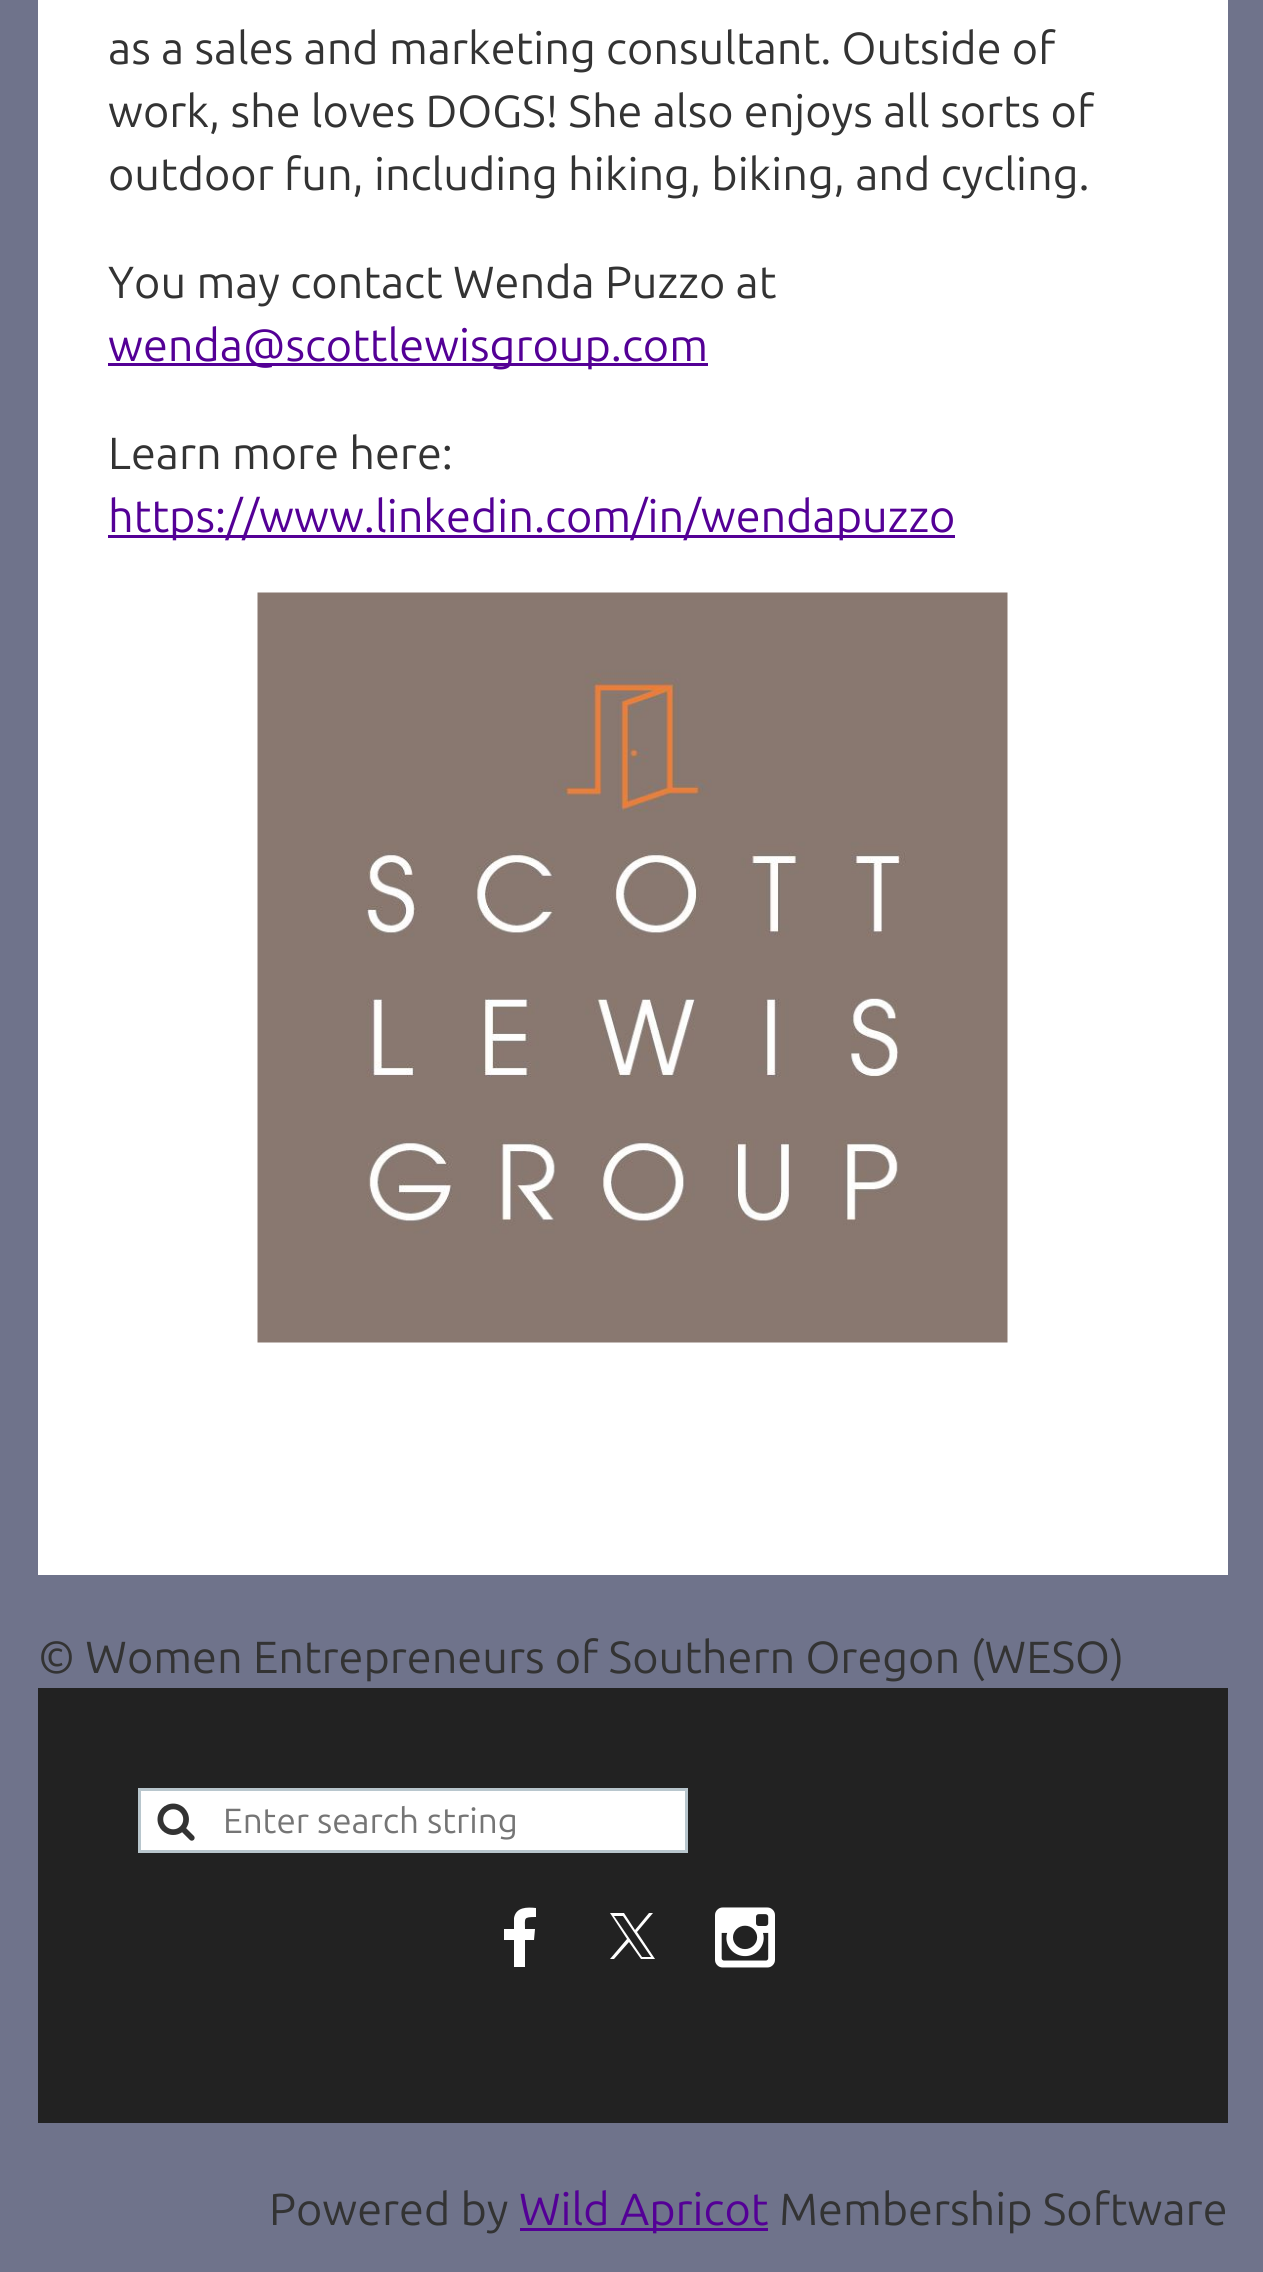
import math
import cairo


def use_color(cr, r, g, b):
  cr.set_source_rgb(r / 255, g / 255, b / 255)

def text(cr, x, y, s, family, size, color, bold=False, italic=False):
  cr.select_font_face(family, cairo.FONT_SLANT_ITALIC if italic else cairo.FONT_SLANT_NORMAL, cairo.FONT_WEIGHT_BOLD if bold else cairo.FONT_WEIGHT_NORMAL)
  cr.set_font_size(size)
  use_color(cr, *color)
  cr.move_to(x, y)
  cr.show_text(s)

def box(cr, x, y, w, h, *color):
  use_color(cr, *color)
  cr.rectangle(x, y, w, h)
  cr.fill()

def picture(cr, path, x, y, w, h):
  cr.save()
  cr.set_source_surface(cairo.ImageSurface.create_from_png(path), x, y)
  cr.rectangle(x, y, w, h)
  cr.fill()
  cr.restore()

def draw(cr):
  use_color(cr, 111, 115, 139)
  cr.paint()
  box(cr, 38, 0, 1190, 1575, 255, 255, 255)
  box(cr, 108, 363, 600, 3, 84, 0, 150)
  box(cr, 108, 535, 847, 3, 84, 0, 150)
  picture(cr, "img_01.png", 257, 592, 751, 751)
  box(cr, 38, 1688, 1190, 435, 34, 34, 34)
  use_color(cr, 255, 255, 255)
  cr.rectangle(139.5, 1789.5, 547, 62)
  cr.fill_preserve()
  use_color(cr, 184, 198, 205)
  cr.set_line_width(3)
  cr.stroke()
  picture(cr, "img_02.png", 157, 1803, 38, 38)
  use_color(cr, 255, 255, 255)
  cr.new_path()
  cr.move_to(536, 1917)
  cr.curve_to(523, 1917, 525, 1918, 525, 1929)
  cr.line_to(535, 1929)
  cr.line_to(534, 1940)
  cr.line_to(525, 1940)
  cr.line_to(525, 1967)
  cr.line_to(514, 1967)
  cr.line_to(514, 1940)
  cr.line_to(504, 1940)
  cr.line_to(504, 1929)
  cr.line_to(514, 1929)
  cr.line_to(514, 1918)
  cr.curve_to(516, 1907, 527, 1907, 536, 1908)
  cr.close_path()
  cr.fill()
  cr.new_path()
  cr.move_to(610, 1913)
  cr.line_to(624, 1913)
  cr.line_to(635, 1930)
  cr.line_to(649, 1913)
  cr.line_to(653, 1913)
  cr.line_to(637, 1932)
  cr.line_to(655, 1959)
  cr.line_to(641, 1959)
  cr.line_to(629, 1942)
  cr.line_to(614, 1959)
  cr.line_to(610, 1959)
  cr.line_to(627, 1939)
  cr.close_path()
  cr.move_to(614, 1916)
  cr.line_to(642, 1957)
  cr.line_to(651, 1957)
  cr.line_to(623, 1916)
  cr.close_path()
  cr.fill()
  picture(cr, "img_03.png", 715, 1907, 60, 61)
  box(cr, 520, 2228, 248, 3, 84, 0, 150)
  text(cr, 108, 64, "as a sales and marketing consultant. Outside of", "Ubuntu", 45, (51, 51, 51))
  text(cr, 108, 127, "work, she loves DOGS! She also enjoys all sorts of", "Ubuntu", 45, (51, 51, 51))
  text(cr, 108, 190, "outdoor fun, including hiking, biking, and cycling.", "Ubuntu", 45, (51, 51, 51))
  text(cr, 108, 298, "You may contact Wenda Puzzo at", "Ubuntu", 45, (51, 51, 51))
  text(cr, 108, 361, "wenda@scottlewisgroup.com", "Ubuntu", 45, (84, 0, 150))
  text(cr, 108, 469, "Learn more here:", "Ubuntu", 45, (51, 51, 51))
  text(cr, 108, 532, "https://www.linkedin.com/in/wendapuzzo", "Ubuntu", 45, (84, 0, 150))
  text(cr, 38, 1673, "© Women Entrepreneurs of Southern Oregon (WESO)", "Ubuntu", 45, (51, 51, 51))
  text(cr, 223, 1833, "Enter search string", "Ubuntu", 35, (117, 117, 117))
  text(cr, 269, 2225, "Powered by", "Ubuntu", 45, (51, 51, 51))
  text(cr, 519, 2225, "Wild Apricot", "Ubuntu", 45, (84, 0, 150))
  text(cr, 779, 2225, "Membership Software", "Ubuntu", 45, (51, 51, 51))


surface = cairo.ImageSurface(cairo.FORMAT_RGB24, 1263, 2272)
cr = cairo.Context(surface)
options = cairo.FontOptions()
options.set_hint_metrics(cairo.HINT_METRICS_OFF)
options.set_hint_style(cairo.HINT_STYLE_NONE)
cr.set_font_options(options)
cr.set_miter_limit(4)
draw(cr)
surface.write_to_png("out.png")
